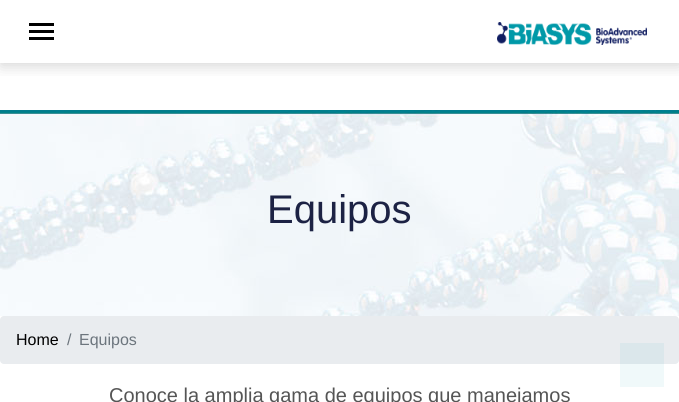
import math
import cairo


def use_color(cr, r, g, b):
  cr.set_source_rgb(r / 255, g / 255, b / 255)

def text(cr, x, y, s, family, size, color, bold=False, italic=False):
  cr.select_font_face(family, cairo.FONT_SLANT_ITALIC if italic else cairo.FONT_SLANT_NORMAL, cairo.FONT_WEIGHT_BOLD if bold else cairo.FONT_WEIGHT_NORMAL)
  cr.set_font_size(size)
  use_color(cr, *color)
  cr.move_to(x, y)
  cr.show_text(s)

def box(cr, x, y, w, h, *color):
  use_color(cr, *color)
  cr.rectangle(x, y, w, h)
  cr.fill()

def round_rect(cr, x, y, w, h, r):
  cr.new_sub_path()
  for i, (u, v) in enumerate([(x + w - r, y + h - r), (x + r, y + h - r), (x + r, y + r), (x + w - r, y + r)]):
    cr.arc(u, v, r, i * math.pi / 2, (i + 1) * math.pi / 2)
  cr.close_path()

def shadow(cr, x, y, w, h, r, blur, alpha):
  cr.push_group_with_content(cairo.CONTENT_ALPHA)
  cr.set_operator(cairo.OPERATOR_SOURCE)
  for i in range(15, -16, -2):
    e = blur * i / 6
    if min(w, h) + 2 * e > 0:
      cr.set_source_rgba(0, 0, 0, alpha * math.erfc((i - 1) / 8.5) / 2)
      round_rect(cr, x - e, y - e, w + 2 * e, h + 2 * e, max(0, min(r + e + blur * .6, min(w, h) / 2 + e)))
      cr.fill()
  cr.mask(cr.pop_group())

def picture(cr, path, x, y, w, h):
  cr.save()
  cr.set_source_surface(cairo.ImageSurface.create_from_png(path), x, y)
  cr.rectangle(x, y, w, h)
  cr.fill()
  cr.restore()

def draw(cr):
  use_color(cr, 255, 255, 255)
  cr.paint()
  cr.save()
  cr.rectangle(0, 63, 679, 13)
  cr.clip()
  use_color(cr, 100, 100, 100)
  shadow(cr, 1, 2, 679, 63, 0, 7.5, 0.3)
  cr.restore()
  box(cr, 29, 23, 25, 3, 0, 0, 0)
  box(cr, 29, 30, 25, 3, 0, 0, 0)
  box(cr, 29, 37, 25, 3, 0, 0, 0)
  picture(cr, "img_01.png", 497, 22, 150, 23)
  picture(cr, "img_02.png", 0, 110, 679, 206)
  use_color(cr, 233, 236, 239)
  round_rect(cr, 0, 316, 679, 48, 4)
  cr.fill()
  cr.set_source_rgba(0.008, 0.604, 0.663, 0.06)
  cr.rectangle(620, 343, 44, 44)
  cr.fill()
  text(cr, 267, 223, "Equipos", "Liberation Sans", 40, (28, 34, 68))
  text(cr, 16, 345, "Home", "Liberation Sans", 16, (0, 0, 0))
  text(cr, 67, 345, "/", "Liberation Sans", 16, (108, 117, 125))
  text(cr, 79, 345, "Equipos", "Liberation Sans", 16, (108, 117, 125))
  text(cr, 109, 402, "Conoce la amplia gama de equipos que manejamos", "Liberation Sans", 20, (85, 85, 85))


surface = cairo.ImageSurface(cairo.FORMAT_RGB24, 679, 402)
cr = cairo.Context(surface)
options = cairo.FontOptions()
options.set_hint_metrics(cairo.HINT_METRICS_OFF)
options.set_hint_style(cairo.HINT_STYLE_NONE)
cr.set_font_options(options)
cr.set_miter_limit(4)
draw(cr)
surface.write_to_png("out.png")
